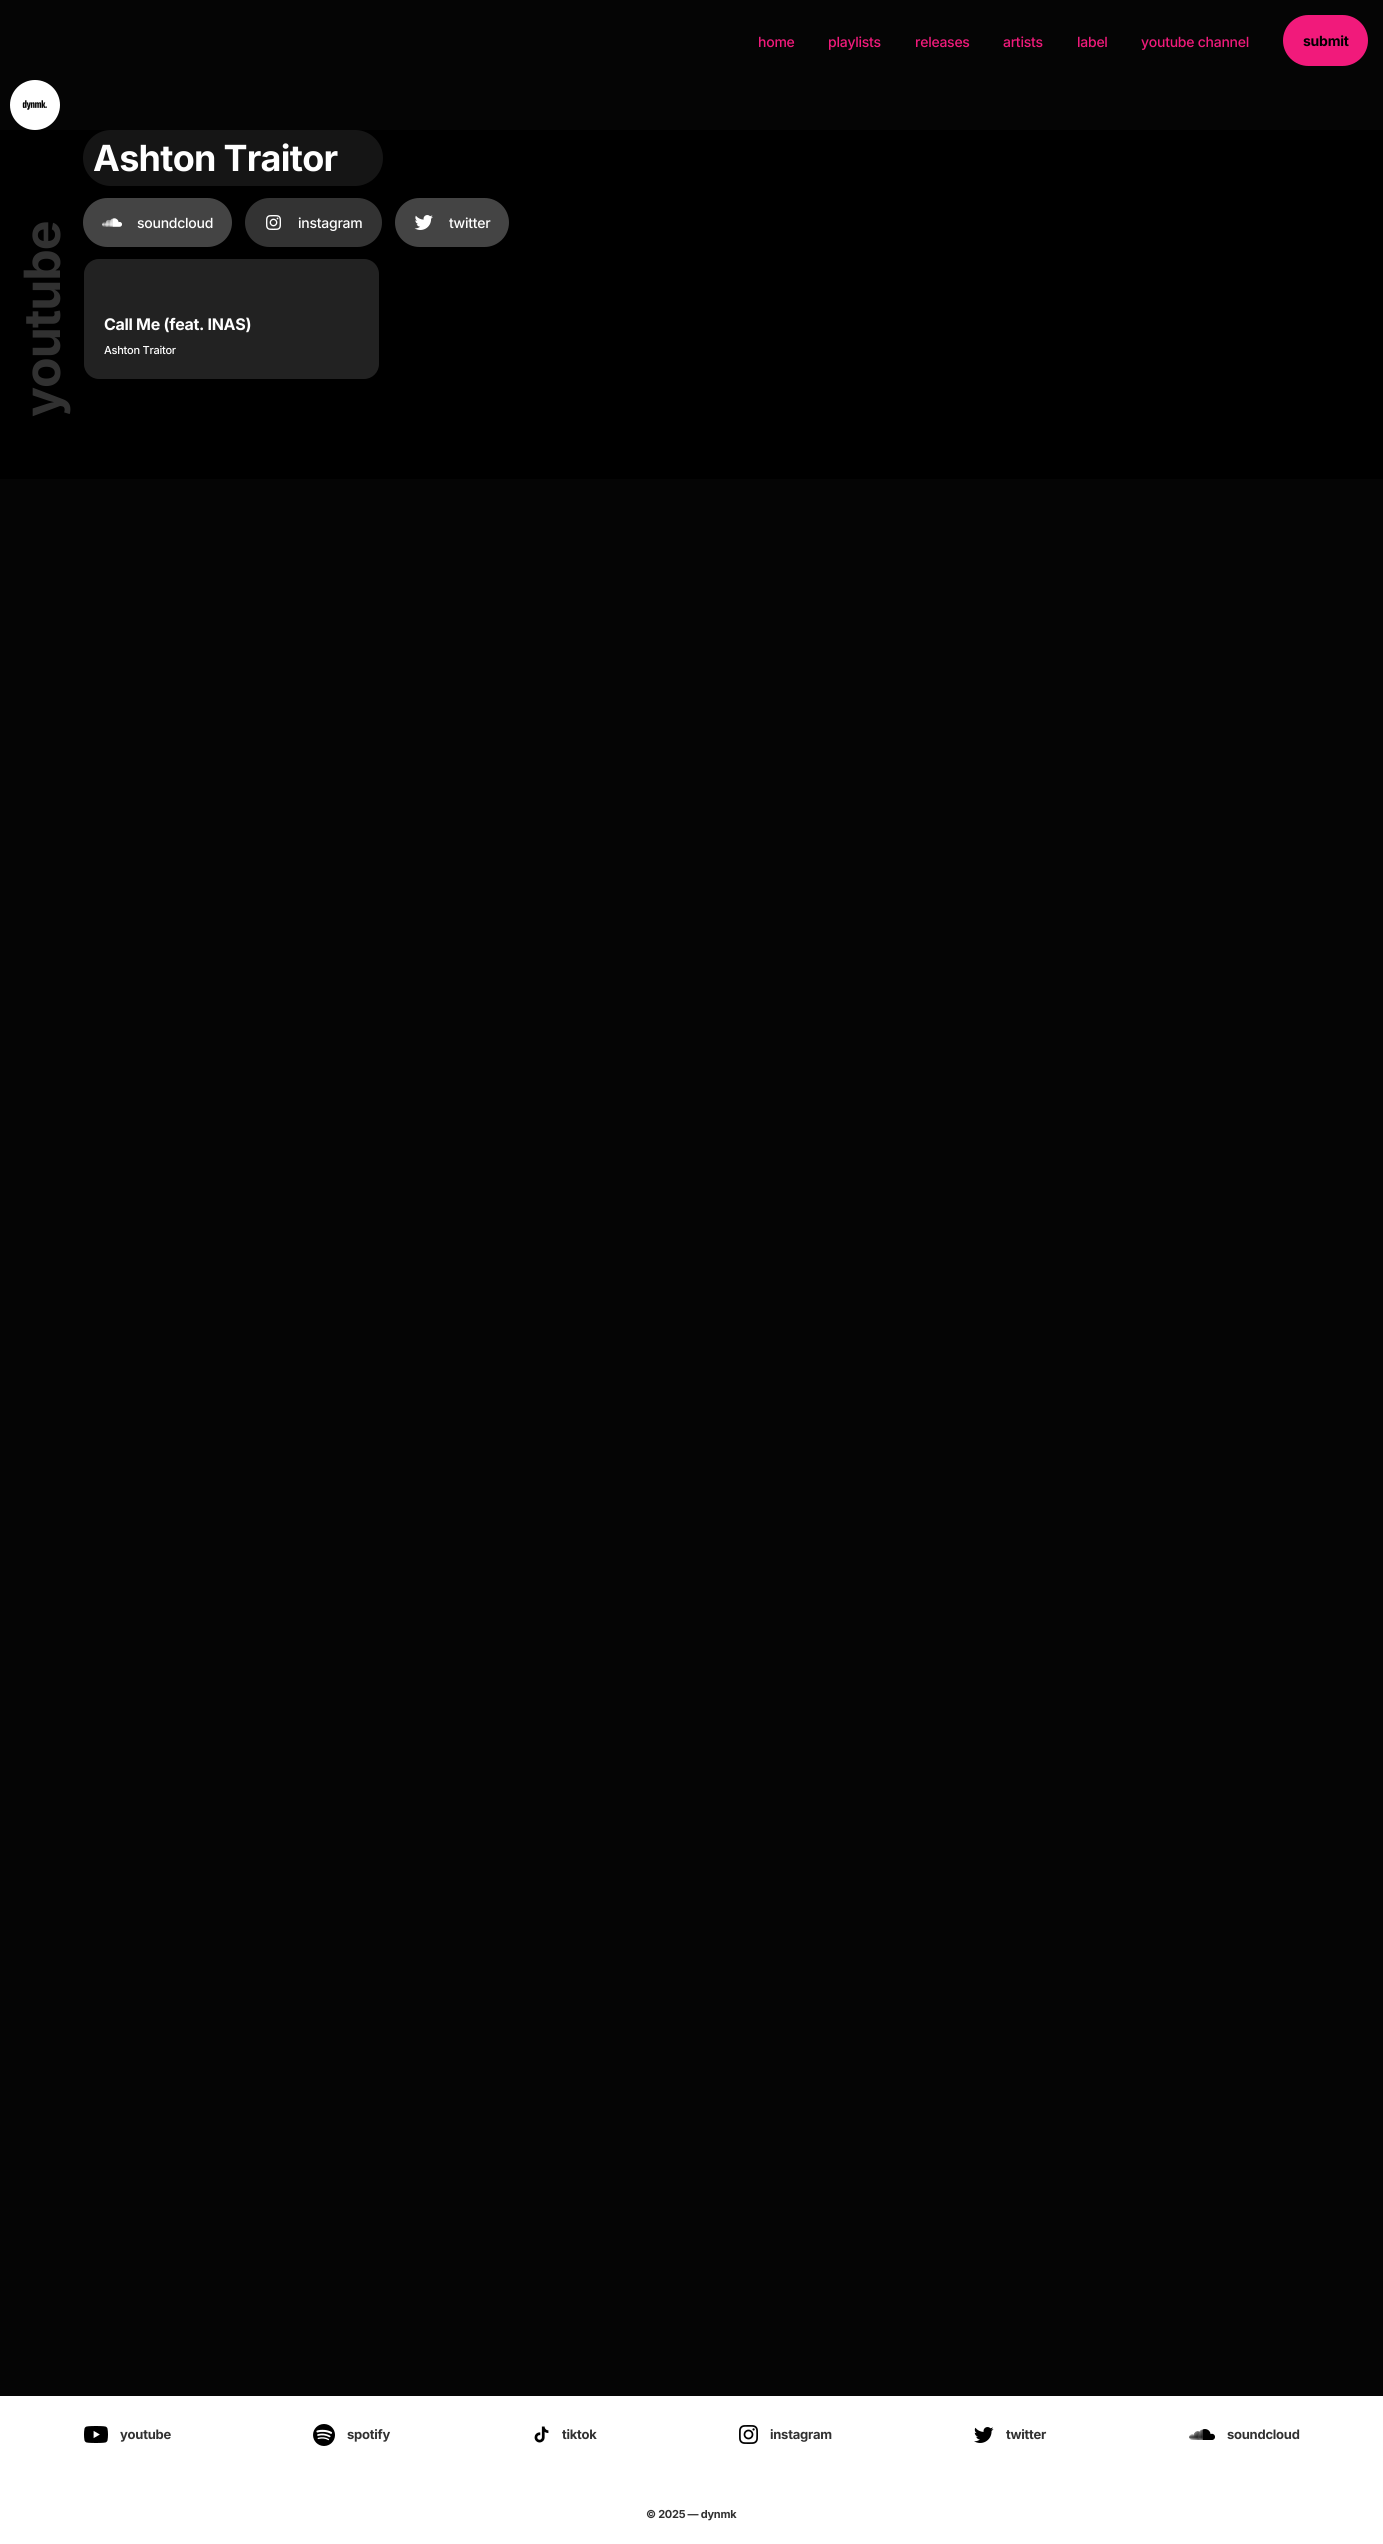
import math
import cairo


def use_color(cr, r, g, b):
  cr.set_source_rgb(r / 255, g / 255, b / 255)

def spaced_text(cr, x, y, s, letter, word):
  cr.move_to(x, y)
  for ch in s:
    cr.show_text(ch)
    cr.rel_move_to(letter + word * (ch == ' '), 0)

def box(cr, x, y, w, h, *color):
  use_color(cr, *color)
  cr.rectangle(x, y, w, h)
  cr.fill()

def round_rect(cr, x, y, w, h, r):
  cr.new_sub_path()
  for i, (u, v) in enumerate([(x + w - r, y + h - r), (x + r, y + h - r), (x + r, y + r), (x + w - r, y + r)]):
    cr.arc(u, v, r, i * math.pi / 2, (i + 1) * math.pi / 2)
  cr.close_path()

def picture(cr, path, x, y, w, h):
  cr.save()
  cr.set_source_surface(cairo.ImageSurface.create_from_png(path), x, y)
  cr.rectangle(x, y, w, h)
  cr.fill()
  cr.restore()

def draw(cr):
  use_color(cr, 5, 5, 5)
  cr.paint()
  use_color(cr, 241, 26, 123)
  round_rect(cr, 1283, 15, 85, 51, 25.5)
  cr.fill()
  picture(cr, "img_01.png", 10, 80, 50, 50)
  box(cr, 0, 130, 1383, 349, 0, 0, 0)
  use_color(cr, 21, 21, 21)
  round_rect(cr, 83, 130, 300, 56, 28)
  cr.fill()
  use_color(cr, 68, 68, 68)
  round_rect(cr, 83, 198, 149, 49, 24.5)
  cr.fill()
  picture(cr, "img_02.png", 102, 218, 20, 9)
  use_color(cr, 51, 51, 51)
  round_rect(cr, 245, 198, 137, 49, 24.5)
  cr.fill()
  picture(cr, "img_03.png", 266, 215, 15, 15)
  use_color(cr, 68, 68, 68)
  round_rect(cr, 395, 198, 114, 49, 24.5)
  cr.fill()
  picture(cr, "img_04.png", 414, 215, 19, 15)
  use_color(cr, 34, 34, 34)
  round_rect(cr, 84, 259, 295, 120, 15)
  cr.fill()
  box(cr, 0, 2396, 1383, 148, 255, 255, 255)
  picture(cr, "img_05.png", 84, 2426, 24, 17)
  picture(cr, "img_06.png", 313, 2424, 22, 22)
  picture(cr, "img_07.png", 534, 2426, 15, 17)
  picture(cr, "img_08.png", 739, 2425, 19, 19)
  picture(cr, "img_09.png", 974, 2427, 20, 16)
  picture(cr, "img_10.png", 1189, 2429, 26, 11)
  cr.select_font_face("Inter Medium")
  cr.set_font_size(14)
  use_color(cr, 241, 26, 123)
  spaced_text(cr, 758, 47, "home", -0.25, 0)
  spaced_text(cr, 828, 47, "playlists", -0.25, 0)
  spaced_text(cr, 915, 47, "releases", -0.25, 0)
  spaced_text(cr, 1003, 47, "artists", -0.25, 0)
  spaced_text(cr, 1077, 47, "label", -0.25, 0)
  spaced_text(cr, 1141, 47, "youtube channel", -0.25, 0)
  cr.select_font_face("Inter", cairo.FONT_SLANT_NORMAL, cairo.FONT_WEIGHT_BOLD)
  use_color(cr, 0, 0, 0)
  spaced_text(cr, 1303, 46, "submit", -0.25, 0)
  cr.set_font_size(36)
  use_color(cr, 255, 255, 255)
  spaced_text(cr, 93, 171, "Ashton Traitor", -0.75, 0)
  cr.select_font_face("Inter Medium")
  cr.set_font_size(14)
  spaced_text(cr, 137, 228, "soundcloud", -0.25, 0)
  spaced_text(cr, 298, 228, "instagram", -0.25, 0)
  spaced_text(cr, 449, 228, "twitter", -0.25, 0)
  cr.select_font_face("Inter", cairo.FONT_SLANT_NORMAL, cairo.FONT_WEIGHT_BOLD)
  cr.set_font_size(50)
  use_color(cr, 49, 49, 49)
  cr.save()
  cr.translate(60, 417)
  cr.rotate(-90 * math.pi / 180)
  spaced_text(cr, 0, 0, "youtube", -1, 0)
  cr.restore()
  cr.set_font_size(16)
  use_color(cr, 255, 255, 255)
  spaced_text(cr, 104, 330, "Call Me (feat. INAS)", -0.3, 0)
  cr.select_font_face("Inter Medium")
  cr.set_font_size(11)
  spaced_text(cr, 104, 354, "Ashton Traitor", -0.25, 0)
  cr.select_font_face("Inter", cairo.FONT_SLANT_NORMAL, cairo.FONT_WEIGHT_BOLD)
  cr.set_font_size(13)
  use_color(cr, 49, 49, 49)
  spaced_text(cr, 120, 2439, "youtube", -0.25, 0)
  spaced_text(cr, 347, 2439, "spotify", -0.25, 0)
  spaced_text(cr, 562, 2439, "tiktok", -0.25, 0)
  spaced_text(cr, 770, 2439, "instagram", -0.25, 0)
  spaced_text(cr, 1006, 2439, "twitter", -0.25, 0)
  spaced_text(cr, 1227, 2439, "soundcloud", -0.25, 0)
  cr.set_font_size(11)
  spaced_text(cr, 646, 2518, "© 2025 — dynmk", -0.25, 0)


surface = cairo.ImageSurface(cairo.FORMAT_RGB24, 1383, 2544)
cr = cairo.Context(surface)
options = cairo.FontOptions()
options.set_hint_metrics(cairo.HINT_METRICS_OFF)
options.set_hint_style(cairo.HINT_STYLE_NONE)
cr.set_font_options(options)
cr.set_miter_limit(4)
draw(cr)
surface.write_to_png("out.png")
